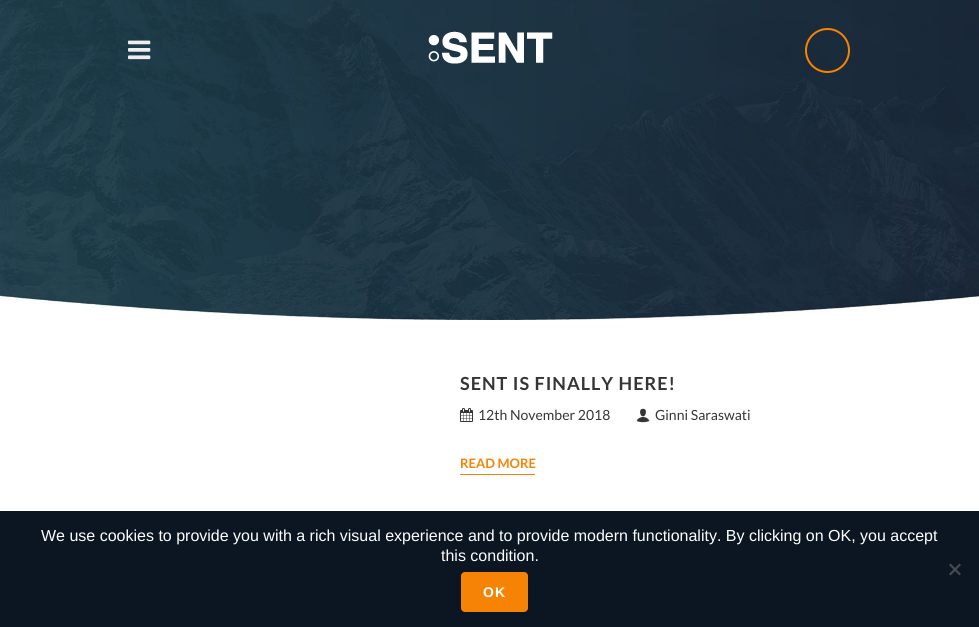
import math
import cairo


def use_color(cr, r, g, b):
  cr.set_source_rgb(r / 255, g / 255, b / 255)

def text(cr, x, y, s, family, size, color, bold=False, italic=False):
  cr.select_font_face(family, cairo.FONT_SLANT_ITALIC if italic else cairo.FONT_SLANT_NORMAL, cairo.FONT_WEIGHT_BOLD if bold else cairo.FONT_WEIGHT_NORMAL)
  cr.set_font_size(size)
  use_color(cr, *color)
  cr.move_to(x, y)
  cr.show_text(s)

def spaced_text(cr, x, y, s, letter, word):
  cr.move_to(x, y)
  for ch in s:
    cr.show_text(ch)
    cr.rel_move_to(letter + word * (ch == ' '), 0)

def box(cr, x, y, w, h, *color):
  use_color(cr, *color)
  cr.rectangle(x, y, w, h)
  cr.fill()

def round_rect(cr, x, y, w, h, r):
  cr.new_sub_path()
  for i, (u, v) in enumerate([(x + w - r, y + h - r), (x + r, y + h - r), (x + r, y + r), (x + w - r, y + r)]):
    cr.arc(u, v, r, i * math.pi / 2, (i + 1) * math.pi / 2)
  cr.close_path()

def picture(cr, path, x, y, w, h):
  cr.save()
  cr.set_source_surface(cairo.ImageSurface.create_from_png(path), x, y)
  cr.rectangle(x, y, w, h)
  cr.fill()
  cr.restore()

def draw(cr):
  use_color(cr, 255, 255, 255)
  cr.paint()
  picture(cr, "img_03.png", 0, 0, 979, 320)
  picture(cr, "img_01.png", 128, 40, 23, 20)
  picture(cr, "img_02.png", 428, 31, 125, 33)
  cr.arc(827.5, 50.5, 21.5, 0, 2 * math.pi)
  use_color(cr, 249, 131, 0)
  cr.stroke()
  picture(cr, "img_04.png", 460, 408, 13, 14)
  picture(cr, "img_05.png", 636, 408, 14, 15)
  box(cr, 460, 474, 75, 1, 247, 131, 5)
  box(cr, 0, 511, 979, 116, 12, 22, 34)
  use_color(cr, 70, 75, 81)
  cr.new_path()
  cr.move_to(959.5, 563.5)
  cr.line_to(961, 565)
  cr.line_to(950.5, 575.5)
  cr.line_to(949, 574)
  cr.close_path()
  cr.fill()
  cr.new_path()
  cr.move_to(949, 565)
  cr.line_to(950.5, 563.5)
  cr.line_to(961, 574)
  cr.line_to(959.5, 575.5)
  cr.close_path()
  cr.fill()
  use_color(cr, 247, 131, 5)
  round_rect(cr, 461, 572, 67, 40, 4)
  cr.fill()
  cr.select_font_face("Lato", cairo.FONT_SLANT_NORMAL, cairo.FONT_WEIGHT_BOLD)
  cr.set_font_size(18)
  use_color(cr, 53, 53, 53)
  spaced_text(cr, 460, 390, "SENT IS FINALLY HERE!", 1, 0)
  text(cr, 478, 420, "12th November 2018", "Lato", 14, (53, 53, 53))
  text(cr, 655, 420, "Ginni Saraswati", "Lato", 14, (53, 53, 53))
  text(cr, 460, 468, "READ MORE", "Lato", 13, (247, 131, 5), bold=True)
  text(cr, 41, 541, "We use cookies to provide you with a rich visual experience and to provide modern functionality. By clicking on OK, you accept", "Liberation Sans", 16, (255, 255, 255))
  text(cr, 441, 561, "this condition.", "Liberation Sans", 16, (255, 255, 255))
  cr.select_font_face("Liberation Sans", cairo.FONT_SLANT_NORMAL, cairo.FONT_WEIGHT_BOLD)
  cr.set_font_size(14)
  spaced_text(cr, 483, 597, "OK", 1, 0)


surface = cairo.ImageSurface(cairo.FORMAT_RGB24, 979, 627)
cr = cairo.Context(surface)
options = cairo.FontOptions()
options.set_hint_metrics(cairo.HINT_METRICS_OFF)
options.set_hint_style(cairo.HINT_STYLE_NONE)
cr.set_font_options(options)
cr.set_miter_limit(4)
draw(cr)
surface.write_to_png("out.png")
